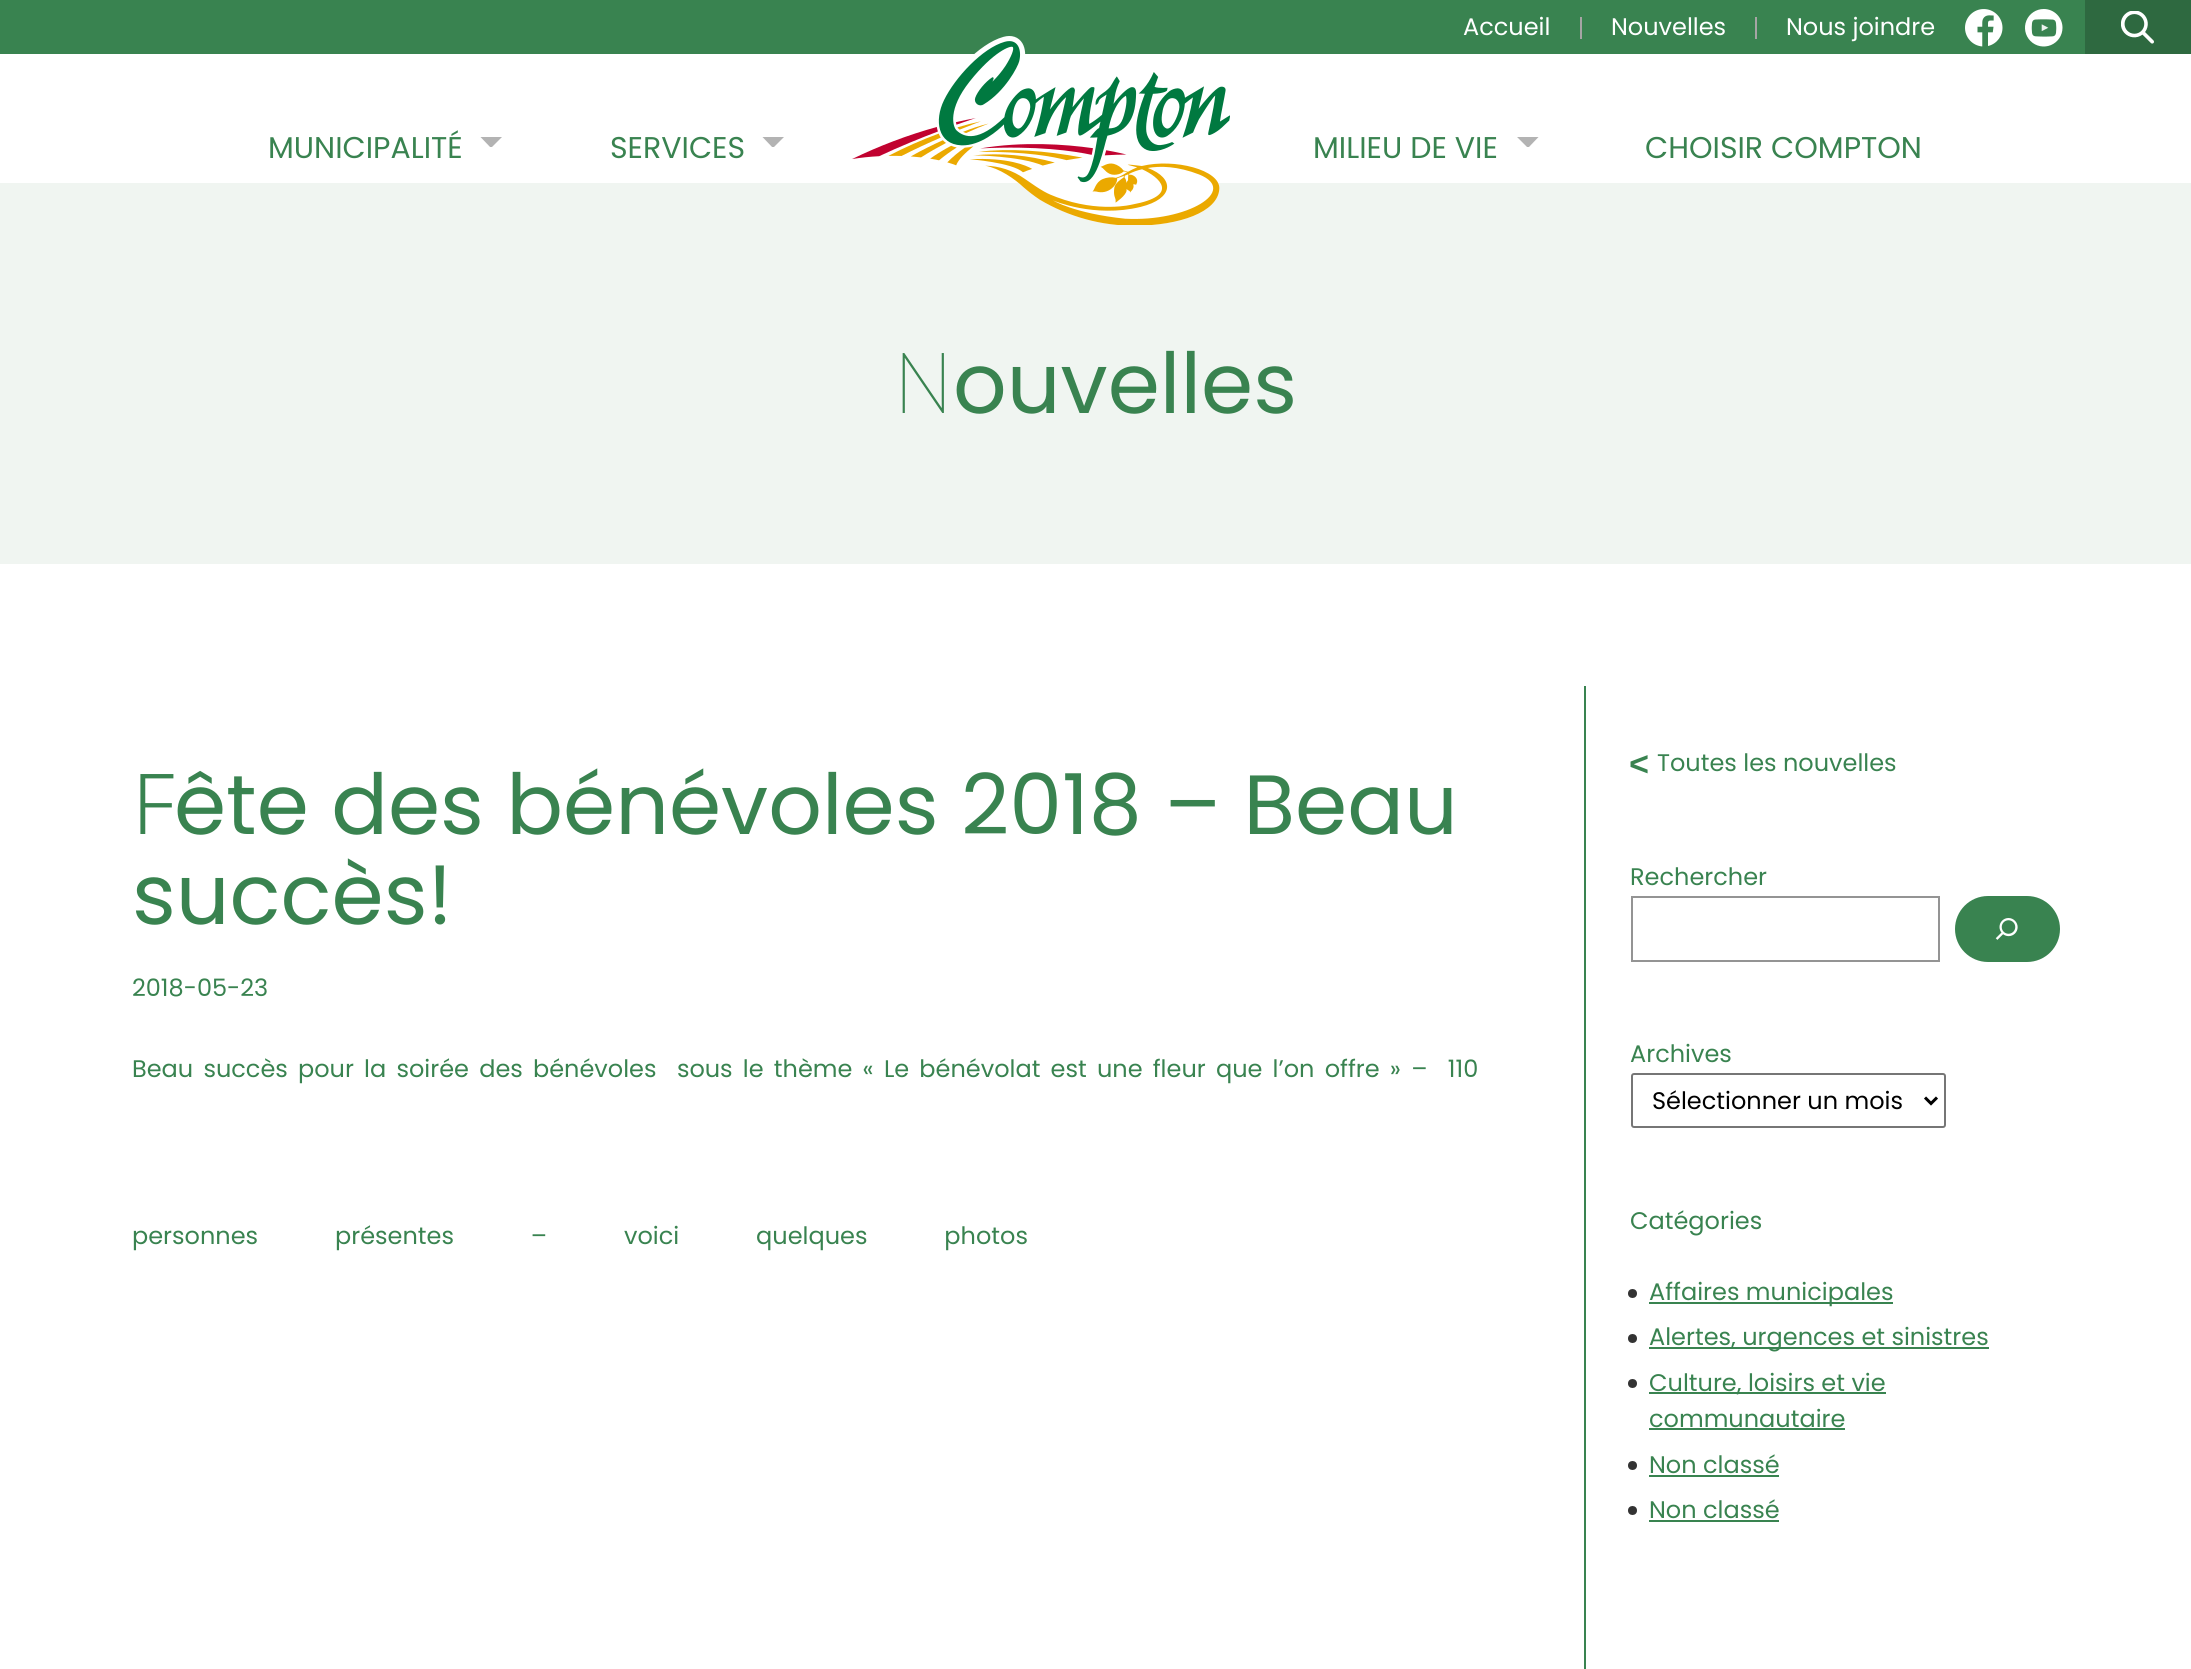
import math
import cairo


def use_color(cr, r, g, b):
  cr.set_source_rgb(r / 255, g / 255, b / 255)

def text(cr, x, y, s, family, size, color, bold=False, italic=False):
  cr.select_font_face(family, cairo.FONT_SLANT_ITALIC if italic else cairo.FONT_SLANT_NORMAL, cairo.FONT_WEIGHT_BOLD if bold else cairo.FONT_WEIGHT_NORMAL)
  cr.set_font_size(size)
  use_color(cr, *color)
  cr.move_to(x, y)
  cr.show_text(s)

def spaced_text(cr, x, y, s, letter, word):
  cr.move_to(x, y)
  for ch in s:
    cr.show_text(ch)
    cr.rel_move_to(letter + word * (ch == ' '), 0)

def box(cr, x, y, w, h, *color):
  use_color(cr, *color)
  cr.rectangle(x, y, w, h)
  cr.fill()

def round_rect(cr, x, y, w, h, r):
  cr.new_sub_path()
  for i, (u, v) in enumerate([(x + w - r, y + h - r), (x + r, y + h - r), (x + r, y + r), (x + w - r, y + r)]):
    cr.arc(u, v, r, i * math.pi / 2, (i + 1) * math.pi / 2)
  cr.close_path()

def picture(cr, path, x, y, w, h):
  cr.save()
  cr.set_source_surface(cairo.ImageSurface.create_from_png(path), x, y)
  cr.rectangle(x, y, w, h)
  cr.fill()
  cr.restore()

def draw(cr):
  use_color(cr, 255, 255, 255)
  cr.paint()
  box(cr, 0, 0, 2085, 54, 57, 131, 80)
  box(cr, 1580, 17, 2, 22, 166, 165, 165)
  box(cr, 1755, 17, 2, 22, 166, 165, 165)
  picture(cr, "img_01.png", 1965, 9, 38, 38)
  picture(cr, "img_02.png", 2025, 9, 38, 38)
  box(cr, 2085, 0, 106, 54, 46, 105, 64)
  picture(cr, "img_03.png", 2121, 11, 33, 33)
  cr.save()
  cr.rectangle(480, 137, 23, 10)
  cr.clip()
  use_color(cr, 179, 179, 179)
  cr.new_path()
  cr.move_to(502.5, 136.5)
  cr.line_to(480, 136.5)
  cr.line_to(491, 148)
  cr.close_path()
  cr.fill()
  cr.restore()
  cr.save()
  cr.rectangle(762, 137, 23, 10)
  cr.clip()
  use_color(cr, 179, 179, 179)
  cr.new_path()
  cr.move_to(784.5, 136.5)
  cr.line_to(762, 136.5)
  cr.line_to(773, 148)
  cr.close_path()
  cr.fill()
  cr.restore()
  box(cr, 0, 183, 2191, 381, 240, 245, 241)
  picture(cr, "img_04.png", 852, 36, 378, 189)
  cr.save()
  cr.rectangle(1517, 137, 22, 10)
  cr.clip()
  use_color(cr, 179, 179, 179)
  cr.new_path()
  cr.move_to(1539, 136.5)
  cr.line_to(1516.5, 136.5)
  cr.line_to(1528, 148)
  cr.close_path()
  cr.fill()
  cr.restore()
  box(cr, 1584, 686, 2, 983, 57, 131, 80)
  cr.rectangle(1632, 897, 307, 64)
  use_color(cr, 148, 148, 148)
  cr.stroke()
  use_color(cr, 57, 131, 80)
  round_rect(cr, 1955, 896, 105, 66, 33)
  cr.fill()
  picture(cr, "img_05.png", 1995, 918, 23, 22)
  round_rect(cr, 1632, 1074, 313, 53, 2)
  use_color(cr, 118, 118, 118)
  cr.stroke()
  cr.new_path()
  cr.move_to(1925, 1097.5)
  cr.line_to(1931, 1103.5)
  cr.line_to(1937, 1097.5)
  use_color(cr, 0, 0, 0)
  cr.set_line_width(3)
  cr.stroke()
  use_color(cr, 51, 51, 51)
  cr.arc(1632.5, 1293.5, 4.5, 0, 2 * math.pi)
  cr.fill()
  box(cr, 1649, 1302, 244, 2, 57, 131, 80)
  use_color(cr, 51, 51, 51)
  cr.arc(1632.5, 1338.5, 4.5, 0, 2 * math.pi)
  cr.fill()
  box(cr, 1649, 1347, 340, 2, 57, 131, 80)
  use_color(cr, 51, 51, 51)
  cr.arc(1632.5, 1383.5, 4.5, 0, 2 * math.pi)
  cr.fill()
  box(cr, 1649, 1392, 237, 2, 57, 131, 80)
  box(cr, 1649, 1428, 196, 2, 57, 131, 80)
  use_color(cr, 51, 51, 51)
  cr.arc(1632.5, 1465.5, 4.5, 0, 2 * math.pi)
  cr.fill()
  box(cr, 1649, 1475, 130, 2, 57, 131, 80)
  use_color(cr, 51, 51, 51)
  cr.arc(1632.5, 1510.5, 4.5, 0, 2 * math.pi)
  cr.fill()
  box(cr, 1649, 1520, 130, 2, 57, 131, 80)
  text(cr, 1463, 35, "Accueil", "Poppins", 24, (255, 255, 255))
  text(cr, 1611, 35, "Nouvelles", "Poppins", 24, (255, 255, 255))
  text(cr, 1786, 35, "Nous joindre", "Poppins", 24, (255, 255, 255))
  text(cr, 268, 158, "MUNICIPALITÉ", "Poppins", 30, (57, 131, 80))
  text(cr, 610, 158, "SERVICES", "Poppins", 30, (57, 131, 80))
  text(cr, 1313, 158, "MILIEU DE VIE", "Poppins", 30, (57, 131, 80))
  text(cr, 1645, 158, "CHOISIR COMPTON", "Poppins", 30, (57, 131, 80))
  text(cr, 894, 413, "N", "Noto Sans Thin", 84, (57, 131, 80))
  text(cr, 953, 413, "ouvelles", "Poppins", 84, (57, 131, 80))
  text(cr, 132, 834, "F", "Noto Sans Light", 84, (57, 131, 80))
  text(cr, 174, 834, "ête des bénévoles 2018 – Beau", "Poppins", 84, (57, 131, 80))
  text(cr, 132, 924, "succès!", "Poppins", 84, (57, 131, 80))
  text(cr, 132, 996, "2018-05-23", "Poppins", 24, (57, 131, 80))
  spaced_text(cr, 132, 1077, "Beau succès pour la soirée des bénévoles  sous le thème « Le bénévolat est une fleur que l’on offre » –  110", 0, 3.8)
  spaced_text(cr, 132, 1244, "personnes présentes – voici quelques photos", 0, 70.5)
  cr.save()
  cr.translate(1649, 753)
  cr.rotate(180 * math.pi / 180)
  text(cr, 0, 0, ">", "Liberation Sans", 34, (57, 131, 80), bold=True)
  cr.restore()
  text(cr, 1657, 771, "Toutes les nouvelles", "Poppins", 24, (57, 131, 80))
  text(cr, 1630, 885, "Rechercher", "Poppins", 24, (57, 131, 80))
  text(cr, 1630, 1062, "Archives", "Poppins", 24, (57, 131, 80))
  text(cr, 1652, 1109, "Sélectionner un mois", "Poppins", 24, (0, 0, 0))
  text(cr, 1630, 1229, "Catégories", "Poppins", 24, (57, 131, 80))
  text(cr, 1649, 1300, "Affaires municipales", "Poppins", 24, (57, 131, 80))
  text(cr, 1649, 1345, "Alertes, urgences et sinistres", "Poppins", 24, (57, 131, 80))
  text(cr, 1649, 1391, "Culture, loisirs et vie", "Poppins", 24, (57, 131, 80))
  text(cr, 1649, 1427, "communautaire", "Poppins", 24, (57, 131, 80))
  text(cr, 1649, 1473, "Non classé", "Poppins", 24, (57, 131, 80))
  text(cr, 1649, 1518, "Non classé", "Poppins", 24, (57, 131, 80))


surface = cairo.ImageSurface(cairo.FORMAT_RGB24, 2191, 1669)
cr = cairo.Context(surface)
options = cairo.FontOptions()
options.set_hint_metrics(cairo.HINT_METRICS_OFF)
options.set_hint_style(cairo.HINT_STYLE_NONE)
cr.set_font_options(options)
cr.set_miter_limit(4)
draw(cr)
surface.write_to_png("out.png")
